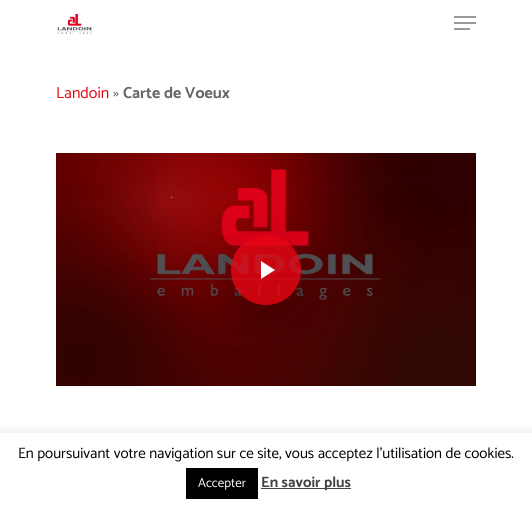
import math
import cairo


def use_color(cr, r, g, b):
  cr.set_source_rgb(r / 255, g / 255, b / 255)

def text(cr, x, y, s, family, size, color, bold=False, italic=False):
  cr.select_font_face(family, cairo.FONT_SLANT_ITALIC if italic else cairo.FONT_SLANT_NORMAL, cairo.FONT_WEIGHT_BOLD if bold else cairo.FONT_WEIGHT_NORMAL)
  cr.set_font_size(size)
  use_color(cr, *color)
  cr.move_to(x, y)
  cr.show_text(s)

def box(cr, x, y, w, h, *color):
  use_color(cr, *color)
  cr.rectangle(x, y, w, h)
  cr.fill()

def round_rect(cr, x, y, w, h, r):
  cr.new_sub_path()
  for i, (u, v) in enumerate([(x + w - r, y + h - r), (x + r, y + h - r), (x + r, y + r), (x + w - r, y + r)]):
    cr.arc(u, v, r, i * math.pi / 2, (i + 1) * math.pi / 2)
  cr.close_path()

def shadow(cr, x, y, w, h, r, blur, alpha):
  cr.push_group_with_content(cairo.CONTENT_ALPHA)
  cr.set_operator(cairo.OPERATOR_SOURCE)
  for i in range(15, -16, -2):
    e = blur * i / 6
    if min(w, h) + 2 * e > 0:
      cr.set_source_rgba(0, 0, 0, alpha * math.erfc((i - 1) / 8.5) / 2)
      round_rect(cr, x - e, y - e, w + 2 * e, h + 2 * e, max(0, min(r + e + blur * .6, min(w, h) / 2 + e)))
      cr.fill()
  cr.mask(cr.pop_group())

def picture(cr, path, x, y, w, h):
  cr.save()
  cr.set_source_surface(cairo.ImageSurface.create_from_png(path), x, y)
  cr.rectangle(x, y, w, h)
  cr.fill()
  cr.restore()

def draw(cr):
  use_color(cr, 255, 255, 255)
  cr.paint()
  picture(cr, "img_01.png", 56, 13, 37, 22)
  box(cr, 454, 16, 22, 2, 153, 153, 153)
  box(cr, 454, 28, 16, 2, 153, 153, 153)
  box(cr, 454, 22, 22, 2, 153, 153, 153)
  picture(cr, "img_02.png", 56, 153, 420, 233)
  cr.save()
  cr.set_fill_rule(cairo.FILL_RULE_EVEN_ODD)
  cr.new_path()
  cr.move_to(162, 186)
  cr.line_to(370, 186)
  cr.line_to(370, 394)
  cr.line_to(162, 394)
  cr.close_path()
  cr.move_to(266, 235)
  cr.curve_to(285.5, 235, 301, 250.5, 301, 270)
  cr.curve_to(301, 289.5, 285.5, 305, 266, 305)
  cr.curve_to(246.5, 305, 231, 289.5, 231, 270)
  cr.curve_to(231, 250.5, 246.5, 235, 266, 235)
  cr.close_path()
  cr.clip()
  use_color(cr, 0, 0, 0)
  shadow(cr, 231, 255, 70, 70, 35, 22.5, 0.25)
  cr.restore()
  cr.set_source_rgba(0.89, 0.024, 0.075, 0.8)
  cr.arc(266, 270, 35, 0, 2 * math.pi)
  cr.fill()
  use_color(cr, 255, 255, 255)
  cr.new_path()
  cr.move_to(261, 261)
  cr.line_to(261, 279)
  cr.line_to(275, 270)
  cr.close_path()
  cr.fill()
  use_color(cr, 172, 171, 171)
  shadow(cr, 0, 432, 532, 78, 0, 5, 0.3)
  box(cr, 0, 433, 532, 78, 255, 255, 255)
  box(cr, 186, 468, 72, 31, 0, 0, 0)
  box(cr, 261, 488, 90, 1, 68, 68, 68)
  text(cr, 56, 98, "Landoin", "Catamaran", 16, (227, 6, 19))
  text(cr, 113, 98, "»", "Catamaran", 16, (102, 102, 102))
  text(cr, 123, 98, "Carte de Voeux", "Catamaran", 16, (102, 102, 102), bold=True)
  text(cr, 18, 458, "En poursuivant votre navigation sur ce site, vous acceptez l’utilisation de cookies.", "Catamaran", 15, (0, 0, 0))
  text(cr, 198, 487, "Accepter", "Catamaran", 13, (255, 255, 255))
  text(cr, 261, 487, "En savoir plus", "Catamaran", 15, (68, 68, 68), bold=True)


surface = cairo.ImageSurface(cairo.FORMAT_RGB24, 532, 511)
cr = cairo.Context(surface)
options = cairo.FontOptions()
options.set_hint_metrics(cairo.HINT_METRICS_OFF)
options.set_hint_style(cairo.HINT_STYLE_NONE)
cr.set_font_options(options)
cr.set_miter_limit(4)
draw(cr)
surface.write_to_png("out.png")
